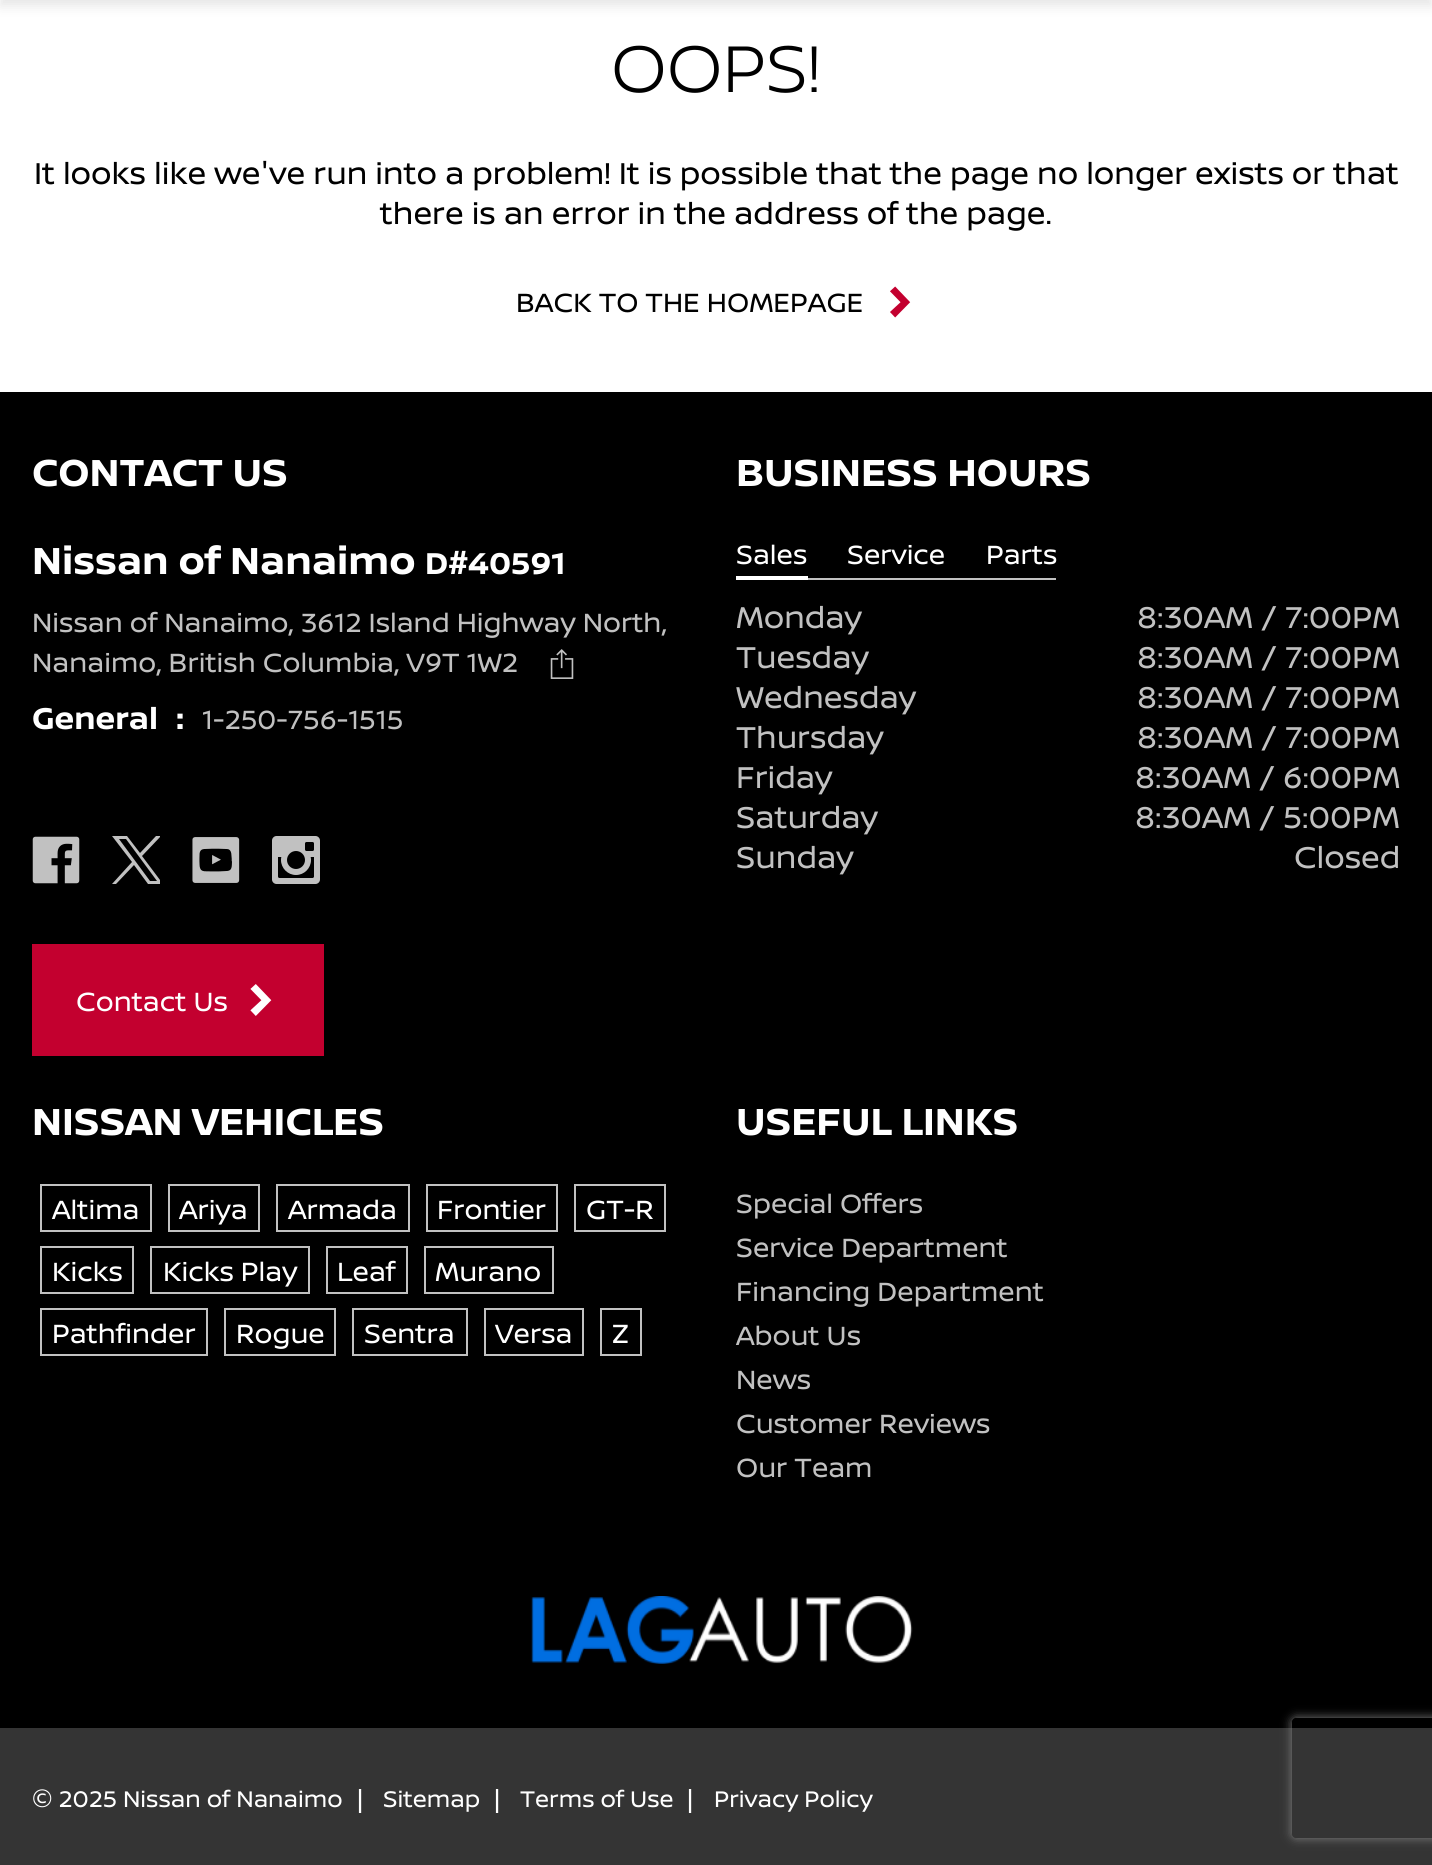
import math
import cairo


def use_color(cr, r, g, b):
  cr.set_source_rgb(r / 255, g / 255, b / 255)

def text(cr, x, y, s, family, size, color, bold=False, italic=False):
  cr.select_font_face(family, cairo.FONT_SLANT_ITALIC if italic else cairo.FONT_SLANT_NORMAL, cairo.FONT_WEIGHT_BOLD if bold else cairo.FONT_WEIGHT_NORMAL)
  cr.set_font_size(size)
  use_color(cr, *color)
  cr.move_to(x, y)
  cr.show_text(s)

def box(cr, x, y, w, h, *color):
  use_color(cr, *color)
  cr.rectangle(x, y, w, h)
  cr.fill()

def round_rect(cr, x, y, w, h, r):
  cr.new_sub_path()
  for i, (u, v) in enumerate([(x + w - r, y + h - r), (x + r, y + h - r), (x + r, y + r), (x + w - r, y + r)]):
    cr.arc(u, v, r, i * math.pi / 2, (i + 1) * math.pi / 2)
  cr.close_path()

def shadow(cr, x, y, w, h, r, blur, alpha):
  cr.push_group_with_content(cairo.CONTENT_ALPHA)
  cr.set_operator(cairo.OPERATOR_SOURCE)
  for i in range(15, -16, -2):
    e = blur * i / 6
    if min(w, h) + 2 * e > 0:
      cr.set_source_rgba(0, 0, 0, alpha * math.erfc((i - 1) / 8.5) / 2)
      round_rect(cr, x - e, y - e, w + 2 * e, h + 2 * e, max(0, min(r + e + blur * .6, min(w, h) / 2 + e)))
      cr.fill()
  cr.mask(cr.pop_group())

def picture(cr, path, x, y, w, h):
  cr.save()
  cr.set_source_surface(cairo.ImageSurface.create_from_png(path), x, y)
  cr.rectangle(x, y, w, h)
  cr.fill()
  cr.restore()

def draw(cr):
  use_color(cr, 255, 255, 255)
  cr.paint()
  use_color(cr, 0, 0, 0)
  shadow(cr, 0, -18, 1432, 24, 0, 6, 0.1)
  picture(cr, "img_01.png", 890, 286, 21, 32)
  box(cr, 0, 392, 1432, 1336, 0, 0, 0)
  picture(cr, "img_02.png", 550, 649, 24, 30)
  picture(cr, "img_03.png", 32, 836, 48, 48)
  cr.save()
  cr.rectangle(112, 836, 48, 48)
  cr.clip()
  use_color(cr, 193, 193, 193)
  cr.new_path()
  cr.move_to(119, 839)
  cr.line_to(126, 839)
  cr.line_to(157, 881)
  cr.line_to(150, 881)
  cr.close_path()
  cr.move_to(156, 836)
  cr.line_to(140, 853)
  cr.line_to(127, 836)
  cr.line_to(112, 836)
  cr.line_to(132, 862)
  cr.line_to(112, 884)
  cr.line_to(116, 884)
  cr.line_to(134, 865)
  cr.line_to(148, 884)
  cr.line_to(163, 884)
  cr.line_to(142, 856)
  cr.line_to(161, 836)
  cr.close_path()
  cr.fill()
  cr.restore()
  picture(cr, "img_04.png", 192, 837, 48, 46)
  picture(cr, "img_05.png", 272, 836, 48, 48)
  box(cr, 32, 944, 292, 112, 195, 0, 47)
  picture(cr, "img_06.png", 250, 984, 22, 32)
  box(cr, 736, 576, 72, 4, 255, 255, 255)
  box(cr, 808, 578, 248, 2, 193, 193, 193)
  cr.rectangle(41, 1185, 110, 46)
  cr.stroke()
  cr.rectangle(169, 1185, 90, 46)
  cr.stroke()
  cr.rectangle(277, 1185, 132, 46)
  cr.stroke()
  cr.rectangle(427, 1185, 130, 46)
  cr.stroke()
  cr.rectangle(575, 1185, 90, 46)
  cr.stroke()
  cr.rectangle(41, 1247, 92, 46)
  cr.stroke()
  cr.rectangle(151, 1247, 158, 46)
  cr.stroke()
  cr.rectangle(327, 1247, 80, 46)
  cr.stroke()
  cr.rectangle(425, 1247, 128, 46)
  cr.stroke()
  cr.rectangle(41, 1309, 166, 46)
  cr.stroke()
  cr.rectangle(225, 1309, 110, 46)
  cr.stroke()
  cr.rectangle(353, 1309, 114, 46)
  cr.stroke()
  cr.rectangle(485, 1309, 98, 46)
  cr.stroke()
  cr.rectangle(601, 1309, 40, 46)
  cr.stroke()
  picture(cr, "img_07.png", 531, 1596, 382, 68)
  box(cr, 0, 1728, 1432, 137, 52, 52, 52)
  cr.save()
  cr.set_fill_rule(cairo.FILL_RULE_EVEN_ODD)
  cr.new_path()
  cr.move_to(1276, 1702)
  cr.line_to(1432, 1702)
  cr.line_to(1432, 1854)
  cr.line_to(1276, 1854)
  cr.close_path()
  cr.move_to(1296, 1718)
  cr.line_to(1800, 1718)
  cr.curve_to(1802, 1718, 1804, 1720, 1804, 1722)
  cr.line_to(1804, 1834)
  cr.curve_to(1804, 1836, 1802, 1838, 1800, 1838)
  cr.line_to(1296, 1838)
  cr.curve_to(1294, 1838, 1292, 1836, 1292, 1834)
  cr.line_to(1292, 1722)
  cr.curve_to(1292, 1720, 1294, 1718, 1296, 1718)
  cr.close_path()
  cr.clip()
  use_color(cr, 128, 128, 128)
  shadow(cr, 1292, 1718, 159, 120, 4, 5, 1)
  cr.restore()
  text(cr, 611, 92, "OOPS!", "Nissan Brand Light", 70, (0, 0, 0))
  text(cr, 34, 184, "It looks like we've run into a problem! It is possible that the page no longer exists or that", "Nissan Brand", 32, (0, 0, 0))
  text(cr, 380, 224, "there is an error in the address of the page.", "Nissan Brand", 32, (0, 0, 0))
  text(cr, 516, 312, "BACK TO THE HOMEPAGE", "Nissan Brand", 28, (0, 0, 0))
  text(cr, 32, 486, "CONTACT US", "Nissan Brand", 40, (255, 255, 255), bold=True)
  text(cr, 32, 574, "Nissan of Nanaimo", "Nissan Brand", 40, (255, 255, 255), bold=True)
  text(cr, 425, 574, "D#40591", "Nissan Brand", 32, (255, 255, 255), bold=True)
  text(cr, 32, 632, "Nissan of Nanaimo, 3612 Island Highway North,", "Nissan Brand", 28, (193, 193, 193))
  text(cr, 32, 672, "Nanaimo, British Columbia, V9T 1W2", "Nissan Brand", 28, (193, 193, 193))
  text(cr, 32, 729, "General", "Nissan Brand", 32, (255, 255, 255), bold=True)
  text(cr, 176, 729, ":", "Nissan Brand", 32, (255, 255, 255), bold=True)
  text(cr, 202, 729, "1-250-756-1515", "Nissan Brand", 28, (193, 193, 193))
  text(cr, 76, 1011, "Contact Us", "Nissan Brand", 28, (255, 255, 255))
  text(cr, 736, 486, "BUSINESS HOURS", "Nissan Brand", 40, (255, 255, 255), bold=True)
  text(cr, 736, 564, "Sales", "Nissan Brand", 28, (255, 255, 255))
  text(cr, 847, 564, "Service", "Nissan Brand", 28, (255, 255, 255))
  text(cr, 986, 564, "Parts", "Nissan Brand", 28, (255, 255, 255))
  text(cr, 736, 628, "Monday", "Nissan Brand", 32, (193, 193, 193))
  text(cr, 1137, 628, "8:30AM / 7:00PM", "Nissan Brand", 32, (193, 193, 193))
  text(cr, 736, 668, "Tuesday", "Nissan Brand", 32, (193, 193, 193))
  text(cr, 1137, 668, "8:30AM / 7:00PM", "Nissan Brand", 32, (193, 193, 193))
  text(cr, 736, 708, "Wednesday", "Nissan Brand", 32, (193, 193, 193))
  text(cr, 1137, 708, "8:30AM / 7:00PM", "Nissan Brand", 32, (193, 193, 193))
  text(cr, 736, 748, "Thursday", "Nissan Brand", 32, (193, 193, 193))
  text(cr, 1137, 748, "8:30AM / 7:00PM", "Nissan Brand", 32, (193, 193, 193))
  text(cr, 736, 788, "Friday", "Nissan Brand", 32, (193, 193, 193))
  text(cr, 1135, 788, "8:30AM / 6:00PM", "Nissan Brand", 32, (193, 193, 193))
  text(cr, 736, 828, "Saturday", "Nissan Brand", 32, (193, 193, 193))
  text(cr, 1135, 828, "8:30AM / 5:00PM", "Nissan Brand", 32, (193, 193, 193))
  text(cr, 736, 868, "Sunday", "Nissan Brand", 32, (193, 193, 193))
  text(cr, 1294, 868, "Closed", "Nissan Brand", 32, (193, 193, 193))
  text(cr, 32, 1135, "NISSAN VEHICLES", "Nissan Brand", 40, (255, 255, 255), bold=True)
  text(cr, 52, 1219, "Altima", "Nissan Brand", 28, (255, 255, 255))
  text(cr, 179, 1219, "Ariya", "Nissan Brand", 28, (255, 255, 255))
  text(cr, 288, 1219, "Armada", "Nissan Brand", 28, (255, 255, 255))
  text(cr, 437, 1219, "Frontier", "Nissan Brand", 28, (255, 255, 255))
  text(cr, 586, 1219, "GT-R", "Nissan Brand", 28, (255, 255, 255))
  text(cr, 52, 1281, "Kicks", "Nissan Brand", 28, (255, 255, 255))
  text(cr, 163, 1281, "Kicks Play", "Nissan Brand", 28, (255, 255, 255))
  text(cr, 337, 1281, "Leaf", "Nissan Brand", 28, (255, 255, 255))
  text(cr, 435, 1281, "Murano", "Nissan Brand", 28, (255, 255, 255))
  text(cr, 52, 1343, "Pathfinder", "Nissan Brand", 28, (255, 255, 255))
  text(cr, 236, 1343, "Rogue", "Nissan Brand", 28, (255, 255, 255))
  text(cr, 364, 1343, "Sentra", "Nissan Brand", 28, (255, 255, 255))
  text(cr, 495, 1343, "Versa", "Nissan Brand", 28, (255, 255, 255))
  text(cr, 612, 1343, "Z", "Nissan Brand", 28, (255, 255, 255))
  text(cr, 736, 1135, "USEFUL LINKS", "Nissan Brand", 40, (255, 255, 255), bold=True)
  text(cr, 736, 1213, "Special Offers", "Nissan Brand", 28, (193, 193, 193))
  text(cr, 736, 1257, "Service Department", "Nissan Brand", 28, (193, 193, 193))
  text(cr, 736, 1301, "Financing Department", "Nissan Brand", 28, (193, 193, 193))
  text(cr, 736, 1345, "About Us", "Nissan Brand", 28, (193, 193, 193))
  text(cr, 736, 1389, "News", "Nissan Brand", 28, (193, 193, 193))
  text(cr, 736, 1433, "Customer Reviews", "Nissan Brand", 28, (193, 193, 193))
  text(cr, 736, 1477, "Our Team", "Nissan Brand", 28, (193, 193, 193))
  text(cr, 32, 1807, "© 2025 Nissan of Nanaimo", "Nissan Brand", 24, (255, 255, 255))
  text(cr, 357, 1807, "|", "Nissan Brand", 24, (255, 255, 255))
  text(cr, 383, 1807, "Sitemap", "Nissan Brand", 24, (255, 255, 255))
  text(cr, 494, 1807, "|", "Nissan Brand", 24, (255, 255, 255))
  text(cr, 520, 1807, "Terms of Use", "Nissan Brand", 24, (255, 255, 255))
  text(cr, 687, 1807, "|", "Nissan Brand", 24, (255, 255, 255))
  text(cr, 714, 1807, "Privacy Policy", "Nissan Brand", 24, (255, 255, 255))


surface = cairo.ImageSurface(cairo.FORMAT_RGB24, 1432, 1865)
cr = cairo.Context(surface)
options = cairo.FontOptions()
options.set_hint_metrics(cairo.HINT_METRICS_OFF)
options.set_hint_style(cairo.HINT_STYLE_NONE)
cr.set_font_options(options)
cr.set_miter_limit(4)
draw(cr)
surface.write_to_png("out.png")
